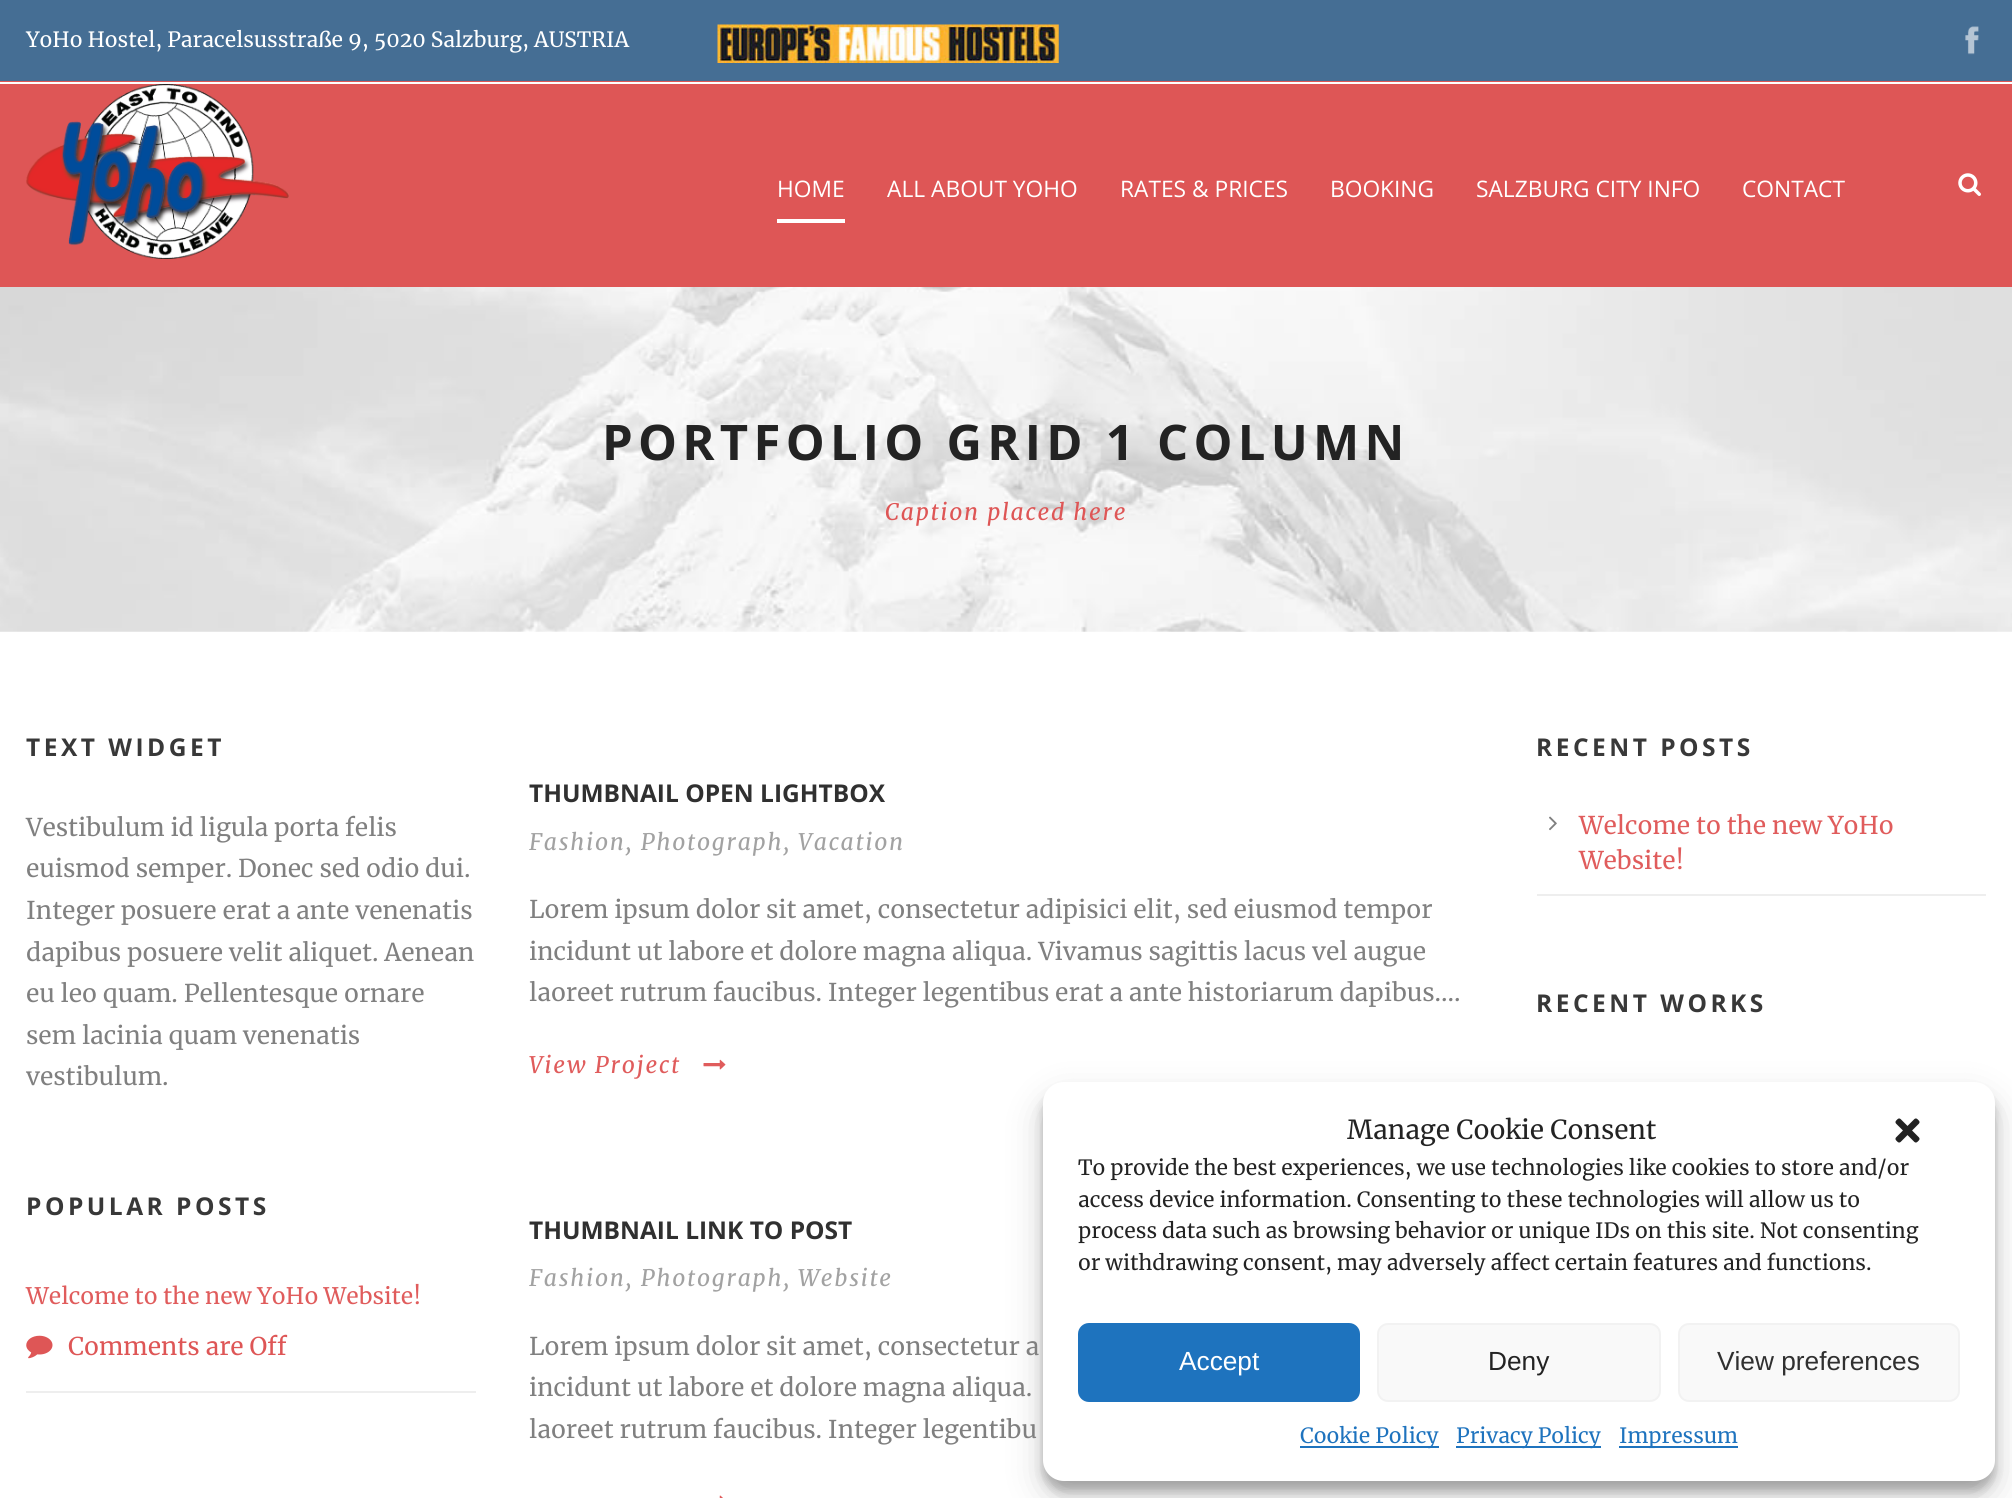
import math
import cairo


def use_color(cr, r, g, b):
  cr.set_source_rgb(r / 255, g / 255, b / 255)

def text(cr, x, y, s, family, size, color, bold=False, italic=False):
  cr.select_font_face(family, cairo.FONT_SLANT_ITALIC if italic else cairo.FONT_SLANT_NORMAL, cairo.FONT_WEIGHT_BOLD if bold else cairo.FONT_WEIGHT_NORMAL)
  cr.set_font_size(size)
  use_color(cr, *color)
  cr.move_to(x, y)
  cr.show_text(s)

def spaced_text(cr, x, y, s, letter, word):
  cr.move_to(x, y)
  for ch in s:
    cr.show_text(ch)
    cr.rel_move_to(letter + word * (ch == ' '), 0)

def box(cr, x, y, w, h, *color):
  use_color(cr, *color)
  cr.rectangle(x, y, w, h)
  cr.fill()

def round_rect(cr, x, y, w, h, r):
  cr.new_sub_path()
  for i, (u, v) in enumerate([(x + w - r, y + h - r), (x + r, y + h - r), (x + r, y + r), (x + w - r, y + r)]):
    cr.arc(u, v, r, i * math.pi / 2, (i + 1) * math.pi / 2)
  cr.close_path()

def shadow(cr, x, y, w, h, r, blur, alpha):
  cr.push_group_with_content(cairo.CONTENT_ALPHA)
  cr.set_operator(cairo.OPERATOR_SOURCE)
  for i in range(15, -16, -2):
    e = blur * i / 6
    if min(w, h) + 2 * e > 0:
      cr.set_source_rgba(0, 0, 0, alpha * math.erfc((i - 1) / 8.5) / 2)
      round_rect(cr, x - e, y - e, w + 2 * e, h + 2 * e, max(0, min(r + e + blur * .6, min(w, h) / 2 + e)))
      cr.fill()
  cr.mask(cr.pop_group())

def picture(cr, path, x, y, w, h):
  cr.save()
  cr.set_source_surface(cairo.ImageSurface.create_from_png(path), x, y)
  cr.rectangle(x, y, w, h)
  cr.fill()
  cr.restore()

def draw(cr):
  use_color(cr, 255, 255, 255)
  cr.paint()
  box(cr, 0, 81, 2012, 206, 222, 86, 86)
  box(cr, 0, 0, 2012, 81, 69, 110, 148)
  picture(cr, "img_01.png", 717, 24, 342, 39)
  picture(cr, "img_02.png", 1965, 26, 14, 29)
  box(cr, 0, 82, 2012, 2, 255, 255, 255)
  picture(cr, "img_03.png", 26, 84, 263, 175)
  picture(cr, "img_04.png", 1958, 173, 23, 23)
  box(cr, 777, 219, 68, 4, 255, 255, 255)
  picture(cr, "img_05.png", 0, 287, 2012, 345)
  box(cr, 26, 1391, 450, 2, 238, 238, 238)
  picture(cr, "img_06.png", 26, 1335, 27, 24)
  picture(cr, "img_07.png", 703, 1059, 23, 11)
  picture(cr, "img_08.png", 719, 1495, 4, 3)
  box(cr, 1537, 894, 449, 2, 238, 238, 238)
  picture(cr, "img_09.png", 1549, 816, 8, 15)
  use_color(cr, 0, 0, 0)
  shadow(cr, 1043, 1092, 952, 399, 21, 5, 0.23)
  shadow(cr, 1043, 1099, 952, 399, 21, 17.5, 0.19)
  use_color(cr, 255, 255, 255)
  round_rect(cr, 1043, 1082, 952, 399, 21)
  cr.fill()
  picture(cr, "img_10.png", 1895, 1118, 25, 25)
  use_color(cr, 30, 115, 190)
  round_rect(cr, 1079, 1324, 280, 77, 10)
  cr.fill_preserve()
  cr.stroke()
  use_color(cr, 249, 249, 249)
  round_rect(cr, 1378, 1324, 282, 77, 10)
  cr.fill_preserve()
  use_color(cr, 242, 242, 242)
  cr.stroke()
  use_color(cr, 249, 249, 249)
  round_rect(cr, 1679, 1324, 280, 77, 10)
  cr.fill_preserve()
  use_color(cr, 242, 242, 242)
  cr.stroke()
  box(cr, 1300, 1446, 139, 2, 30, 115, 190)
  box(cr, 1456, 1446, 145, 2, 30, 115, 190)
  box(cr, 1619, 1446, 119, 2, 30, 115, 190)
  text(cr, 26, 47, "YoHo Hostel, Paracelsusstraße 9, 5020 Salzburg, AUSTRIA", "Merriweather", 21, (255, 255, 255))
  text(cr, 777, 197, "HOME", "Open Sans", 22.75, (255, 255, 255))
  text(cr, 887, 197, "ALL ABOUT YOHO", "Open Sans", 22.75, (255, 255, 255))
  text(cr, 1120, 197, "RATES & PRICES", "Open Sans", 22.75, (255, 255, 255))
  text(cr, 1330, 197, "BOOKING", "Open Sans", 22.75, (255, 255, 255))
  text(cr, 1476, 197, "SALZBURG CITY INFO", "Open Sans", 22.75, (255, 255, 255))
  text(cr, 1742, 197, "CONTACT", "Open Sans", 22.75, (255, 255, 255))
  cr.select_font_face("Open Sans", cairo.FONT_SLANT_NORMAL, cairo.FONT_WEIGHT_BOLD)
  cr.set_font_size(49)
  use_color(cr, 35, 35, 35)
  spaced_text(cr, 602, 460, "PORTFOLIO GRID 1 COLUMN", 5.25, 0)
  cr.select_font_face("Merriweather", cairo.FONT_SLANT_ITALIC)
  cr.set_font_size(22.75)
  use_color(cr, 222, 86, 86)
  spaced_text(cr, 885, 520, "Caption placed here", 1.75, 0)
  cr.select_font_face("Open Sans", cairo.FONT_SLANT_NORMAL, cairo.FONT_WEIGHT_BOLD)
  cr.set_font_size(24.5)
  use_color(cr, 56, 56, 56)
  spaced_text(cr, 26, 756, "TEXT WIDGET", 3.5, 0)
  text(cr, 26, 836, "Vestibulum id ligula porta felis", "Merriweather", 24.5, (128, 128, 128))
  text(cr, 26, 877, "euismod semper. Donec sed odio dui.", "Merriweather", 24.5, (128, 128, 128))
  text(cr, 26, 919, "Integer posuere erat a ante venenatis", "Merriweather", 24.5, (128, 128, 128))
  text(cr, 26, 961, "dapibus posuere velit aliquet. Aenean", "Merriweather", 24.5, (128, 128, 128))
  text(cr, 26, 1002, "eu leo quam. Pellentesque ornare", "Merriweather", 24.5, (128, 128, 128))
  text(cr, 26, 1044, "sem lacinia quam venenatis", "Merriweather", 24.5, (128, 128, 128))
  text(cr, 26, 1085, "vestibulum.", "Merriweather", 24.5, (128, 128, 128))
  cr.select_font_face("Open Sans", cairo.FONT_SLANT_NORMAL, cairo.FONT_WEIGHT_BOLD)
  use_color(cr, 56, 56, 56)
  spaced_text(cr, 26, 1215, "POPULAR POSTS", 3.5, 0)
  text(cr, 26, 1304, "Welcome to the new YoHo Website!", "Merriweather", 22.75, (224, 92, 92))
  text(cr, 68, 1355, "Comments are Off", "Merriweather", 24.5, (222, 86, 86))
  text(cr, 529, 802, "THUMBNAIL OPEN LIGHTBOX", "Open Sans", 24.5, (48, 48, 48), bold=True)
  cr.select_font_face("Merriweather", cairo.FONT_SLANT_ITALIC)
  cr.set_font_size(22.75)
  use_color(cr, 162, 162, 162)
  spaced_text(cr, 529, 850, "Fashion, Photograph, Vacation", 1.75, 0)
  text(cr, 529, 918, "Lorem ipsum dolor sit amet, consectetur adipisici elit, sed eiusmod tempor", "Merriweather", 24.5, (128, 128, 128))
  text(cr, 529, 960, "incidunt ut labore et dolore magna aliqua. Vivamus sagittis lacus vel augue", "Merriweather", 24.5, (128, 128, 128))
  text(cr, 529, 1001, "laoreet rutrum faucibus. Integer legentibus erat a ante historiarum dapibus....", "Merriweather", 24.5, (128, 128, 128))
  cr.select_font_face("Merriweather", cairo.FONT_SLANT_ITALIC)
  cr.set_font_size(22.75)
  use_color(cr, 224, 92, 92)
  spaced_text(cr, 529, 1073, "View Project", 1.75, 0)
  text(cr, 529, 1239, "THUMBNAIL LINK TO POST", "Open Sans", 24.5, (48, 48, 48), bold=True)
  cr.select_font_face("Merriweather", cairo.FONT_SLANT_ITALIC)
  cr.set_font_size(22.75)
  use_color(cr, 162, 162, 162)
  spaced_text(cr, 529, 1286, "Fashion, Photograph, Website", 1.75, 0)
  text(cr, 529, 1355, "Lorem ipsum dolor sit amet, consectetur a", "Merriweather", 24.5, (128, 128, 128))
  text(cr, 529, 1396, "incidunt ut labore et dolore magna aliqua.", "Merriweather", 24.5, (128, 128, 128))
  text(cr, 529, 1438, "laoreet rutrum faucibus. Integer legentibu", "Merriweather", 24.5, (128, 128, 128))
  cr.select_font_face("Open Sans", cairo.FONT_SLANT_NORMAL, cairo.FONT_WEIGHT_BOLD)
  use_color(cr, 56, 56, 56)
  spaced_text(cr, 1536, 756, "RECENT POSTS", 3.5, 0)
  text(cr, 1579, 834, "Welcome to the new YoHo", "Merriweather", 24.5, (224, 92, 92))
  text(cr, 1579, 869, "Website!", "Merriweather", 24.5, (224, 92, 92))
  cr.select_font_face("Open Sans", cairo.FONT_SLANT_NORMAL, cairo.FONT_WEIGHT_BOLD)
  use_color(cr, 56, 56, 56)
  spaced_text(cr, 1536, 1012, "RECENT WORKS", 3.5, 0)
  text(cr, 1347, 1139, "Manage Cookie Consent", "Merriweather", 26.25, (35, 35, 35))
  text(cr, 1078, 1175, "To provide the best experiences, we use technologies like cookies to store and/or", "Merriweather", 21, (35, 35, 35))
  text(cr, 1078, 1207, "access device information. Consenting to these technologies will allow us to", "Merriweather", 21, (35, 35, 35))
  text(cr, 1078, 1238, "process data such as browsing behavior or unique IDs on this site. Not consenting", "Merriweather", 21, (35, 35, 35))
  text(cr, 1078, 1270, "or withdrawing consent, may adversely affect certain features and functions.", "Merriweather", 21, (35, 35, 35))
  text(cr, 1179, 1370, "Accept", "Liberation Sans", 26.25, (255, 255, 255))
  text(cr, 1488, 1370, "Deny", "Liberation Sans", 26.25, (35, 35, 35))
  text(cr, 1717, 1370, "View preferences", "Liberation Sans", 26.25, (48, 48, 48))
  text(cr, 1300, 1443, "Cookie Policy", "Merriweather", 21, (30, 115, 190))
  text(cr, 1456, 1443, "Privacy Policy", "Merriweather", 21, (30, 115, 190))
  text(cr, 1619, 1443, "Impressum", "Merriweather", 21, (30, 115, 190))


surface = cairo.ImageSurface(cairo.FORMAT_RGB24, 2012, 1498)
cr = cairo.Context(surface)
options = cairo.FontOptions()
options.set_hint_metrics(cairo.HINT_METRICS_OFF)
options.set_hint_style(cairo.HINT_STYLE_NONE)
cr.set_font_options(options)
cr.set_miter_limit(4)
draw(cr)
surface.write_to_png("out.png")
